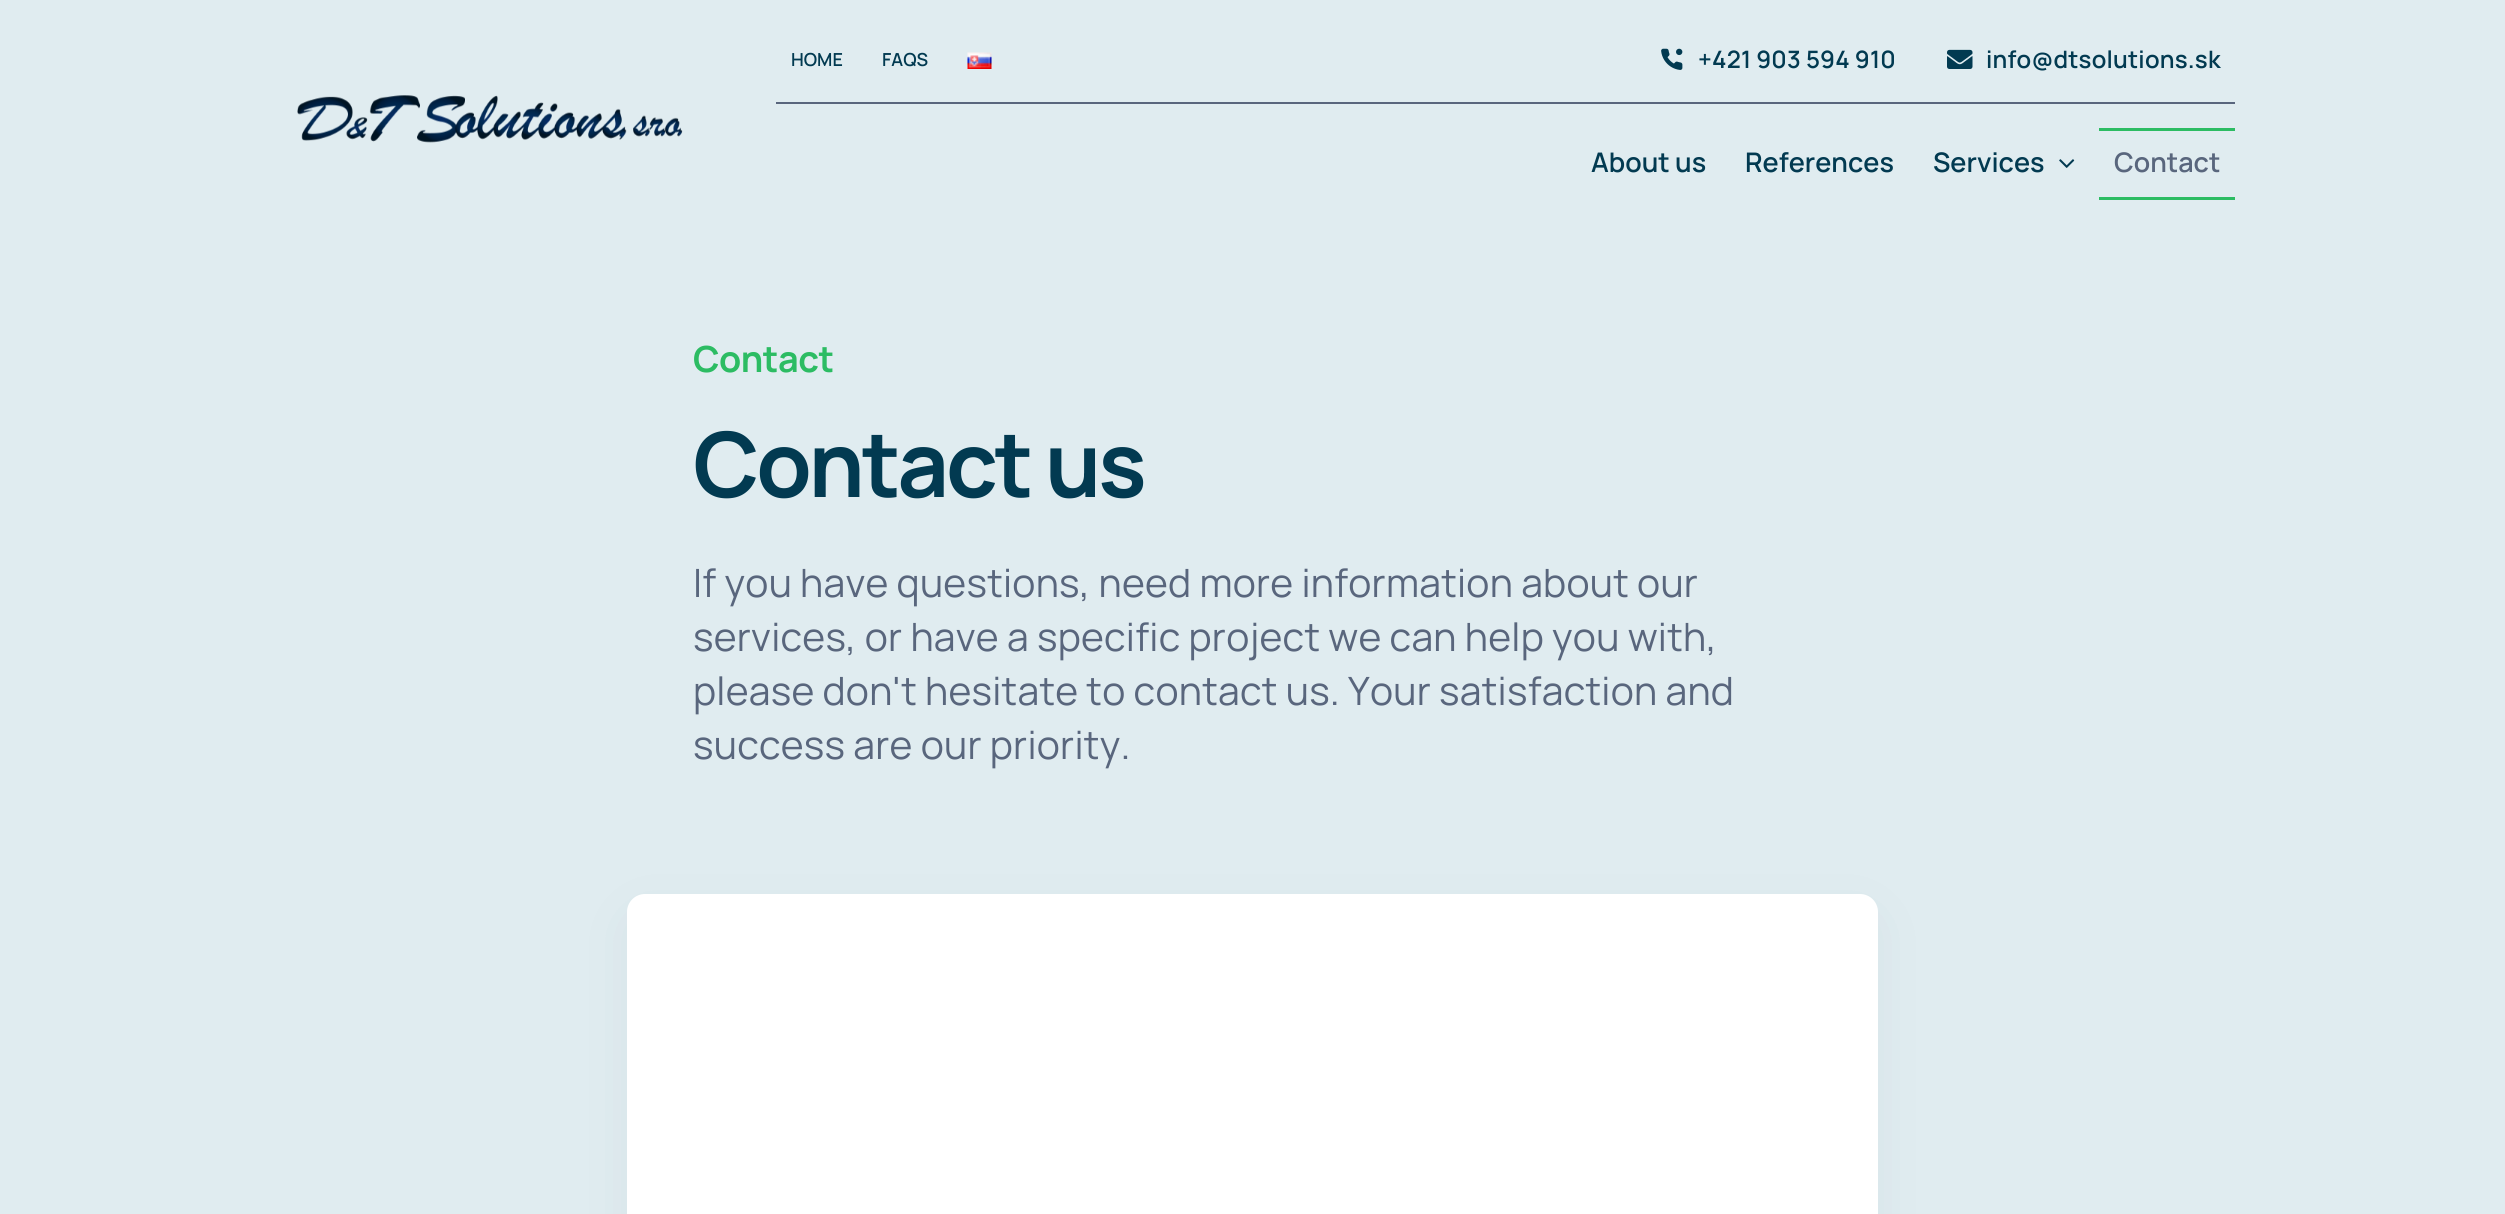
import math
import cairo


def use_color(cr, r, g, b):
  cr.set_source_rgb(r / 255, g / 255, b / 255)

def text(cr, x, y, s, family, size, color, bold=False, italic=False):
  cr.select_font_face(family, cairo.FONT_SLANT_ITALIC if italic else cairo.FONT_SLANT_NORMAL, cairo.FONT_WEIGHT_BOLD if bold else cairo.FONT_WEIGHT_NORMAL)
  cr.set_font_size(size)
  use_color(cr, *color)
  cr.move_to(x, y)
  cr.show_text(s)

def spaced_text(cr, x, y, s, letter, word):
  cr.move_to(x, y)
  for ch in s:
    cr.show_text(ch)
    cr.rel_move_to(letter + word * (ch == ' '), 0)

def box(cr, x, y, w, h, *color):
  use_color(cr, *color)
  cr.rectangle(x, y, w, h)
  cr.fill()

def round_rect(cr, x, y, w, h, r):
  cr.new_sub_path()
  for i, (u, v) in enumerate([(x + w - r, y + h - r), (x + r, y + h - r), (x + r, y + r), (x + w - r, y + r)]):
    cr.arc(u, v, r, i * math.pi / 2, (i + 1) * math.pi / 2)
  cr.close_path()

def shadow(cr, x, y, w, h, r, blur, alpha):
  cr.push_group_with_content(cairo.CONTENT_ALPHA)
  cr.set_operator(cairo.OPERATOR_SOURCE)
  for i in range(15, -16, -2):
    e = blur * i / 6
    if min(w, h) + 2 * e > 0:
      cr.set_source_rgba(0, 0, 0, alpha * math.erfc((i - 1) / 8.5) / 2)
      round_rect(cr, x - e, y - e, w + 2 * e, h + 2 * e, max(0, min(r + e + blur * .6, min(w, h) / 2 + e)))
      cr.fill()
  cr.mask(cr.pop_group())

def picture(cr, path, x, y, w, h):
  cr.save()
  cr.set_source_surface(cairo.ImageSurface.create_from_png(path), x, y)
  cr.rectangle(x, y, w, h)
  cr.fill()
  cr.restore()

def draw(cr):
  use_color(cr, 224, 236, 240)
  cr.paint()
  picture(cr, "img_01.png", 297, 95, 386, 48)
  box(cr, 776, 102, 1459, 2, 89, 102, 125)
  picture(cr, "img_02.png", 967, 52, 25, 17)
  picture(cr, "img_03.png", 1661, 48, 22, 22)
  picture(cr, "img_04.png", 1947, 49, 26, 20)
  picture(cr, "img_05.png", 2059, 159, 16, 9)
  box(cr, 2099, 128, 136, 3, 44, 188, 99)
  box(cr, 2099, 197, 136, 3, 44, 188, 99)
  use_color(cr, 89, 102, 125)
  shadow(cr, 633, 918, 1239, 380, 12, 24, 0.1)
  use_color(cr, 255, 255, 255)
  round_rect(cr, 627, 894, 1251, 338, 18)
  cr.fill()
  text(cr, 791, 66, "HOME", "Manrope SemiBold", 18, (2, 58, 81))
  text(cr, 882, 66, "FAQS", "Manrope SemiBold", 18, (2, 58, 81))
  cr.set_font_size(24)
  spaced_text(cr, 1698, 68, "+421 903 594 910", 0.2, 0)
  spaced_text(cr, 1986, 68, "info@dtsolutions.sk", 0.2, 0)
  text(cr, 1591, 172, "About us", "Manrope SemiBold", 27, (2, 58, 81))
  text(cr, 1745, 172, "References", "Manrope SemiBold", 27, (2, 58, 81))
  text(cr, 1933, 172, "Services", "Manrope SemiBold", 27, (2, 58, 81))
  text(cr, 2114, 172, "Contact", "Manrope SemiBold", 27, (89, 102, 125))
  cr.select_font_face("Manrope", cairo.FONT_SLANT_NORMAL, cairo.FONT_WEIGHT_BOLD)
  cr.set_font_size(36)
  use_color(cr, 44, 188, 99)
  spaced_text(cr, 693, 372, "Contact", -0.5, 0)
  cr.set_font_size(90)
  use_color(cr, 2, 58, 81)
  spaced_text(cr, 693, 497, "Contact us", -3.25, 0)
  cr.select_font_face("Manrope")
  cr.set_font_size(39)
  use_color(cr, 89, 102, 125)
  spaced_text(cr, 693, 597, "If you have questions, need more information about our", 0.25, 0)
  spaced_text(cr, 693, 651, "services, or have a specific project we can help you with,", 0.25, 0)
  spaced_text(cr, 693, 705, "please don't hesitate to contact us. Your satisfaction and", 0.25, 0)
  spaced_text(cr, 693, 759, "success are our priority.", 0.25, 0)


surface = cairo.ImageSurface(cairo.FORMAT_RGB24, 2505, 1214)
cr = cairo.Context(surface)
options = cairo.FontOptions()
options.set_hint_metrics(cairo.HINT_METRICS_OFF)
options.set_hint_style(cairo.HINT_STYLE_NONE)
cr.set_font_options(options)
cr.set_miter_limit(4)
draw(cr)
surface.write_to_png("out.png")
